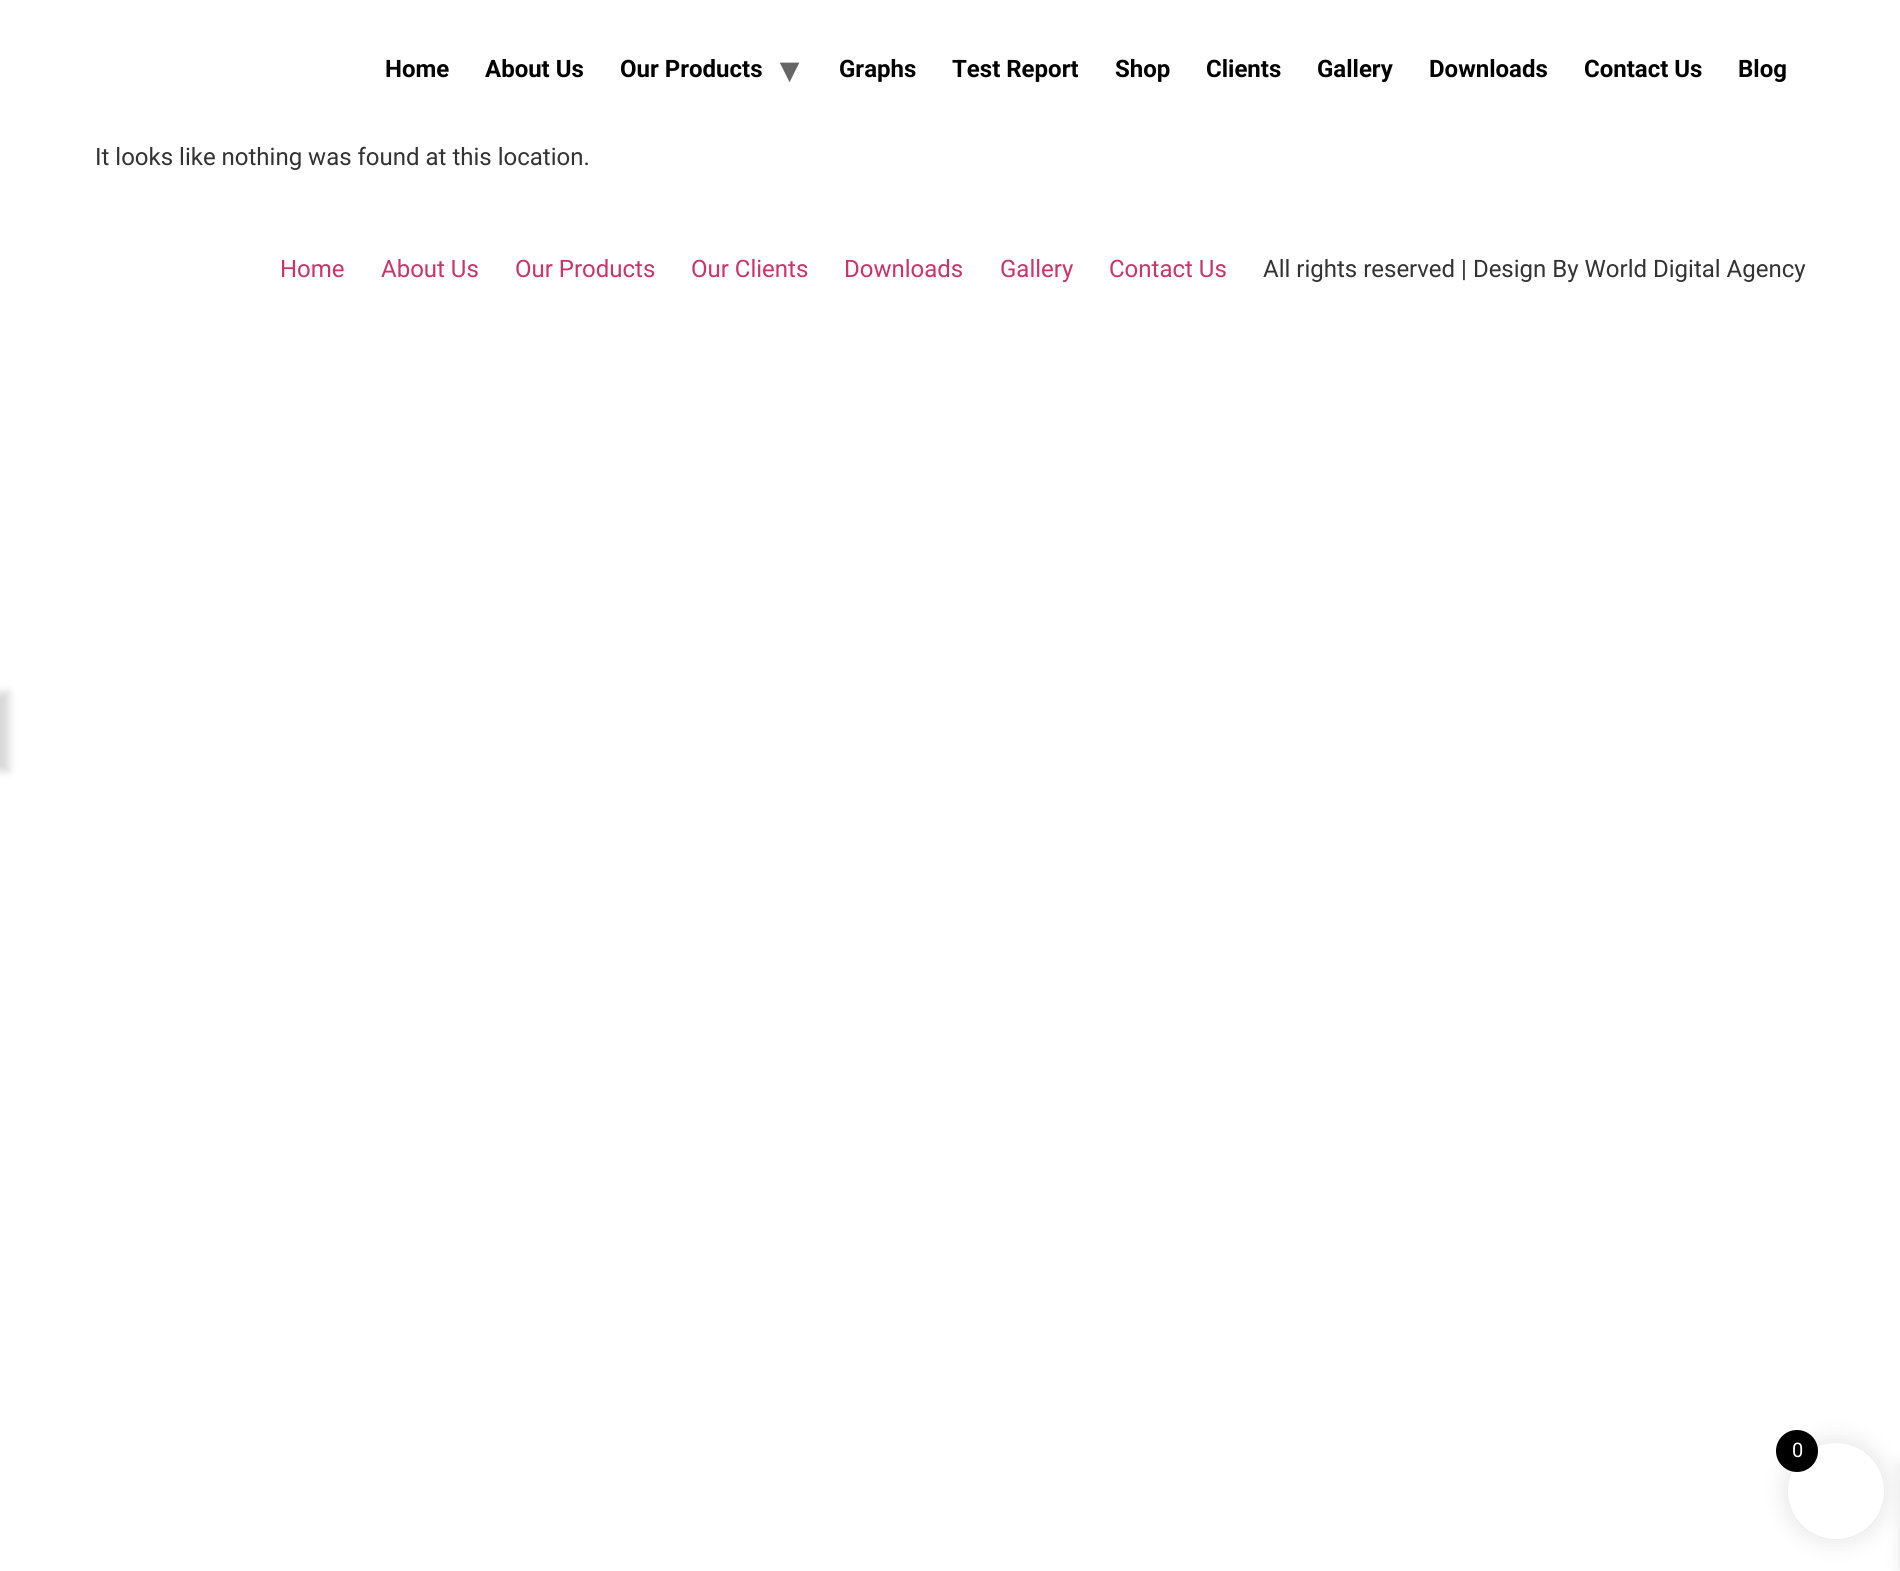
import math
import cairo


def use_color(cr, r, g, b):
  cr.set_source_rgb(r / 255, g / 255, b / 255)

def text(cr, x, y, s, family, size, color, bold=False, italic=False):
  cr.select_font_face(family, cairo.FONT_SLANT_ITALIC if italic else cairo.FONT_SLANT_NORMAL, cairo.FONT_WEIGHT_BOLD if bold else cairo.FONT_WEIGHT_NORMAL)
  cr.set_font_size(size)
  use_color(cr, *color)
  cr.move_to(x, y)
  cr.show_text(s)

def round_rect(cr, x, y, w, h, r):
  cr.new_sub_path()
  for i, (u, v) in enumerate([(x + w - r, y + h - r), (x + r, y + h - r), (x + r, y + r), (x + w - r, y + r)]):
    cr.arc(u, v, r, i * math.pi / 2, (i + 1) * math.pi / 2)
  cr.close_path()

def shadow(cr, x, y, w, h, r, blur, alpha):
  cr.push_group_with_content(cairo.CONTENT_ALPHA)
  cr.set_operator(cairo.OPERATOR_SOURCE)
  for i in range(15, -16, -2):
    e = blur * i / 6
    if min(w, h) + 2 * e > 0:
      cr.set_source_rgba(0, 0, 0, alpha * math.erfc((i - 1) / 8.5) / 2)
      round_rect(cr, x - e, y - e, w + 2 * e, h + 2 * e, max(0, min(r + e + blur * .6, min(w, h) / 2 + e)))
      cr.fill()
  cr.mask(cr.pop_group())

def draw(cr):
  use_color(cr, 255, 255, 255)
  cr.paint()
  use_color(cr, 0, 0, 0)
  shadow(cr, -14, 692, 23, 79, 0, 4.5, 0.16)
  shadow(cr, 1785, 1440, 102, 102, 51, 11, 0.1)
  shadow(cr, 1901, 1464, 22, 107, 0, 7.5, 0.1)
  use_color(cr, 255, 255, 255)
  cr.arc(1836, 1491, 48, 0, 2 * math.pi)
  cr.fill()
  use_color(cr, 0, 0, 0)
  cr.arc(1797, 1451, 21, 0, 2 * math.pi)
  cr.fill()
  text(cr, 385, 77, "Home", "Roboto", 24, (0, 0, 0), bold=True)
  text(cr, 485, 77, "About Us", "Roboto", 24, (0, 0, 0), bold=True)
  text(cr, 620, 77, "Our Products", "Roboto", 24, (0, 0, 0), bold=True)
  text(cr, 780, 82, "▾", "DejaVu Sans", 36, (102, 102, 102), bold=True)
  text(cr, 839, 77, "Graphs", "Roboto", 24, (0, 0, 0), bold=True)
  text(cr, 952, 77, "Test Report", "Roboto", 24, (0, 0, 0), bold=True)
  text(cr, 1115, 77, "Shop", "Roboto", 24, (0, 0, 0), bold=True)
  text(cr, 1206, 77, "Clients", "Roboto", 24, (0, 0, 0), bold=True)
  text(cr, 1317, 77, "Gallery", "Roboto", 24, (0, 0, 0), bold=True)
  text(cr, 1429, 77, "Downloads", "Roboto", 24, (0, 0, 0), bold=True)
  text(cr, 1584, 77, "Contact Us", "Roboto", 24, (0, 0, 0), bold=True)
  text(cr, 1738, 77, "Blog", "Roboto", 24, (0, 0, 0), bold=True)
  text(cr, 95, 165, "It looks like nothing was found at this location.", "Roboto", 24, (51, 51, 51))
  text(cr, 280, 277, "Home", "Roboto", 24, (204, 51, 102))
  text(cr, 381, 277, "About Us", "Roboto", 24, (204, 51, 102))
  text(cr, 515, 277, "Our Products", "Roboto", 24, (204, 51, 102))
  text(cr, 691, 277, "Our Clients", "Roboto", 24, (204, 51, 102))
  text(cr, 844, 277, "Downloads", "Roboto", 24, (204, 51, 102))
  text(cr, 1000, 277, "Gallery", "Roboto", 24, (204, 51, 102))
  text(cr, 1109, 277, "Contact Us", "Roboto", 24, (204, 51, 102))
  text(cr, 1263, 277, "All rights reserved | Design By World Digital Agency", "Roboto", 24, (51, 51, 51))
  text(cr, 1792, 1457, "0", "Roboto", 20, (255, 255, 255))


surface = cairo.ImageSurface(cairo.FORMAT_RGB24, 1900, 1571)
cr = cairo.Context(surface)
options = cairo.FontOptions()
options.set_hint_metrics(cairo.HINT_METRICS_OFF)
options.set_hint_style(cairo.HINT_STYLE_NONE)
cr.set_font_options(options)
cr.set_miter_limit(4)
draw(cr)
surface.write_to_png("out.png")
